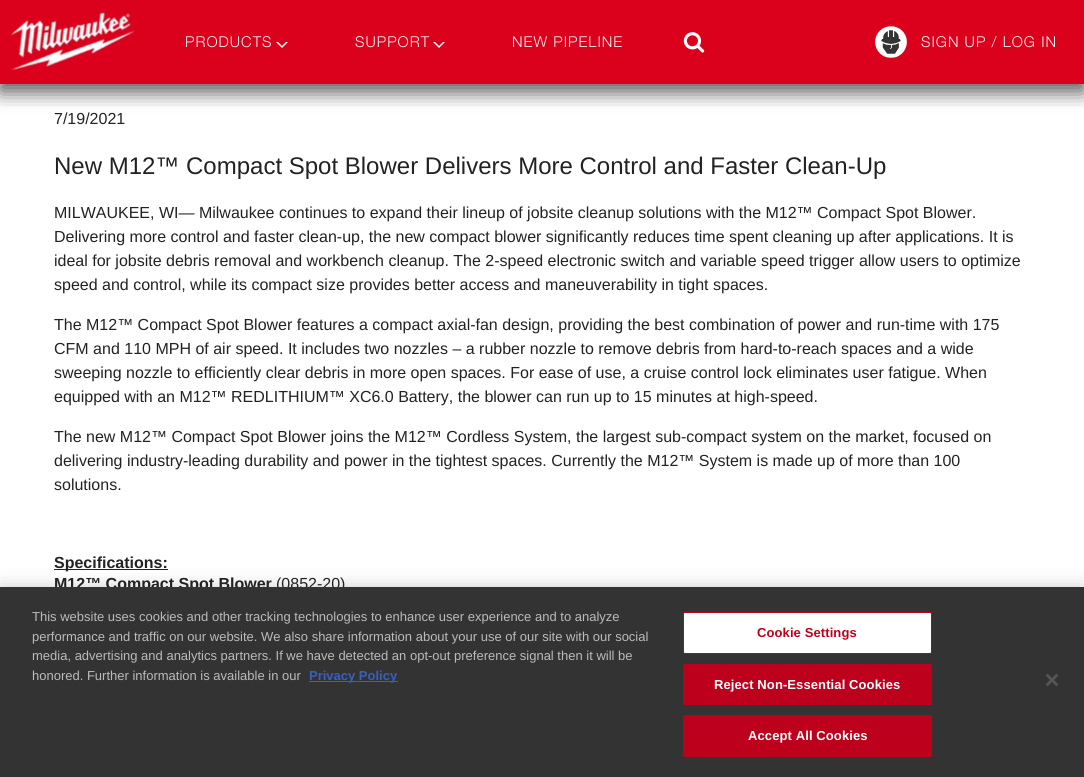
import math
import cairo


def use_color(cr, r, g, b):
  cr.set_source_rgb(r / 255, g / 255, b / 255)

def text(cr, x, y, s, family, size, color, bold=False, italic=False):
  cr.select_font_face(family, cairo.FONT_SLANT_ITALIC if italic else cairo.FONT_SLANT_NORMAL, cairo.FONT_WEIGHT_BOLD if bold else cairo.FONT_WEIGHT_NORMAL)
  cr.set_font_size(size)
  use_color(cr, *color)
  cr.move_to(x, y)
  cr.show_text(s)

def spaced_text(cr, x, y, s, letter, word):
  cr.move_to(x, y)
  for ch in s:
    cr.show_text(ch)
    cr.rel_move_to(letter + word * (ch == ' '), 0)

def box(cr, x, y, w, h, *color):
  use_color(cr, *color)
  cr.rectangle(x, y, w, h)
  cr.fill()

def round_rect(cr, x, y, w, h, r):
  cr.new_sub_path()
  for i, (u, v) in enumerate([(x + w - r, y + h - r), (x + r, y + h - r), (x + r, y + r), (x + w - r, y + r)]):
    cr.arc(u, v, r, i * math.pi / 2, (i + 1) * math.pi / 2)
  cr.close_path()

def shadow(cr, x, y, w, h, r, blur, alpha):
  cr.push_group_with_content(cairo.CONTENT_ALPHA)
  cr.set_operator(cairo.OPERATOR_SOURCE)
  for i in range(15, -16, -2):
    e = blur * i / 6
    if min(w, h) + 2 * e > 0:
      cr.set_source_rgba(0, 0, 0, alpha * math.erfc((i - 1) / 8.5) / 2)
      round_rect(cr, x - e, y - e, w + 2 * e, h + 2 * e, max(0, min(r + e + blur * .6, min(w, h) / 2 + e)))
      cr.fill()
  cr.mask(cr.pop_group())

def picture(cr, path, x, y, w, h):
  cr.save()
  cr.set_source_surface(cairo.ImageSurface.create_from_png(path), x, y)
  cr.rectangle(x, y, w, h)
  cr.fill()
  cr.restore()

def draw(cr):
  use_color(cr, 255, 255, 255)
  cr.paint()
  use_color(cr, 0, 0, 0)
  shadow(cr, 0, 7, 1084, 84, 0, 10, 0.4)
  box(cr, 0, 0, 1084, 84, 219, 1, 28)
  cr.save()
  cr.rectangle(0, 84, 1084, 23)
  cr.clip()
  use_color(cr, 0, 0, 0)
  shadow(cr, 0, 7, 1084, 84, 0, 10, 0.4)
  cr.restore()
  picture(cr, "img_01.png", 11, 12, 124, 59)
  use_color(cr, 255, 255, 255)
  cr.new_path()
  cr.move_to(276, 42)
  cr.line_to(288, 42)
  cr.line_to(282, 48)
  cr.close_path()
  cr.fill()
  use_color(cr, 209, 4, 28)
  cr.new_path()
  cr.move_to(278, 42)
  cr.line_to(286, 42)
  cr.line_to(282, 46)
  cr.close_path()
  cr.fill()
  use_color(cr, 255, 255, 255)
  cr.new_path()
  cr.move_to(433, 42)
  cr.line_to(445, 42)
  cr.line_to(439, 48)
  cr.close_path()
  cr.fill()
  use_color(cr, 209, 4, 28)
  cr.new_path()
  cr.move_to(435, 42)
  cr.line_to(443, 42)
  cr.line_to(439, 46)
  cr.close_path()
  cr.fill()
  picture(cr, "img_02.png", 683, 32, 22, 21)
  picture(cr, "img_03.png", 875, 26, 32, 32)
  box(cr, 54, 569, 114, 1, 34, 34, 34)
  use_color(cr, 0, 0, 0)
  shadow(cr, 0, 587, 1084, 190, 0, 9, 0.2)
  cr.select_font_face("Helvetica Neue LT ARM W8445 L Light")
  cr.set_font_size(15)
  use_color(cr, 239, 239, 239)
  spaced_text(cr, 185, 47, "PRODUCTS", 1, 0)
  spaced_text(cr, 355, 47, "SUPPORT", 1, 0)
  spaced_text(cr, 512, 47, "NEW PIPELINE", 1, 0)
  spaced_text(cr, 921, 47, "SIGN UP / LOG IN", 1, 0)
  text(cr, 54, 124, "7/19/2021", "Liberation Sans", 16, (34, 34, 34))
  text(cr, 54, 174, "New M12™ Compact Spot Blower Delivers More Control and Faster Clean-Up", "Liberation Sans", 24, (34, 34, 34))
  text(cr, 54, 218, "MILWAUKEE, WI— Milwaukee continues to expand their lineup of jobsite cleanup solutions with the M12™ Compact Spot Blower.", "Liberation Sans", 16, (34, 34, 34))
  text(cr, 54, 242, "Delivering more control and faster clean-up, the new compact blower significantly reduces time spent cleaning up after applications. It is", "Liberation Sans", 16, (34, 34, 34))
  text(cr, 54, 266, "ideal for jobsite debris removal and workbench cleanup. The 2-speed electronic switch and variable speed trigger allow users to optimize", "Liberation Sans", 16, (34, 34, 34))
  text(cr, 54, 290, "speed and control, while its compact size provides better access and maneuverability in tight spaces.", "Liberation Sans", 16, (34, 34, 34))
  text(cr, 54, 330, "The M12™ Compact Spot Blower features a compact axial-fan design, providing the best combination of power and run-time with 175", "Liberation Sans", 16, (34, 34, 34))
  text(cr, 54, 354, "CFM and 110 MPH of air speed. It includes two nozzles – a rubber nozzle to remove debris from hard-to-reach spaces and a wide", "Liberation Sans", 16, (34, 34, 34))
  text(cr, 54, 378, "sweeping nozzle to efficiently clear debris in more open spaces. For ease of use, a cruise control lock eliminates user fatigue. When", "Liberation Sans", 16, (34, 34, 34))
  text(cr, 54, 402, "equipped with an M12™ REDLITHIUM™ XC6.0 Battery, the blower can run up to 15 minutes at high-speed.", "Liberation Sans", 16, (34, 34, 34))
  text(cr, 54, 442, "The new M12™ Compact Spot Blower joins the M12™ Cordless System, the largest sub-compact system on the market, focused on", "Liberation Sans", 16, (34, 34, 34))
  text(cr, 54, 466, "delivering industry-leading durability and power in the tightest spaces. Currently the M12™ System is made up of more than 100", "Liberation Sans", 16, (34, 34, 34))
  text(cr, 54, 490, "solutions.", "Liberation Sans", 16, (34, 34, 34))
  text(cr, 54, 568, "Specifications:", "Liberation Sans", 16, (34, 34, 34), bold=True)
  text(cr, 54, 589, "M12™ Compact Spot Blower", "Liberation Sans", 16, (34, 34, 34), bold=True)
  text(cr, 276, 589, "(0852-20)", "Liberation Sans", 16, (34, 34, 34))
  box(cr, 0, 587, 1084, 190, 51, 51, 51)
  text(cr, 32, 621, "This website uses cookies and other tracking technologies to enhance user experience and to analyze", "Liberation Sans", 13, (187, 187, 187))
  text(cr, 32, 641, "performance and traffic on our website. We also share information about your use of our site with our social", "Liberation Sans", 13, (187, 187, 187))
  text(cr, 32, 660, "media, advertising and analytics partners. If we have detected an opt-out preference signal then it will be", "Liberation Sans", 13, (187, 187, 187))
  text(cr, 32, 680, "honored. Further information is available in our", "Liberation Sans", 13, (187, 187, 187))
  box(cr, 309, 681, 89, 1, 56, 96, 190)
  text(cr, 309, 680, "Privacy Policy", "Liberation Sans", 13, (56, 96, 190), bold=True)
  use_color(cr, 255, 255, 255)
  round_rect(cr, 683.5, 612.5, 248, 41, 1.5)
  cr.fill_preserve()
  use_color(cr, 189, 1, 28)
  cr.set_line_width(1)
  cr.stroke()
  spaced_text(cr, 757, 637, "Cookie Settings", 0.1, 0)
  round_rect(cr, 683.5, 664.5, 248, 40, 1.5)
  cr.fill_preserve()
  cr.stroke()
  use_color(cr, 255, 255, 255)
  spaced_text(cr, 714, 689, "Reject Non-Essential Cookies", 0.1, 0)
  use_color(cr, 189, 1, 28)
  round_rect(cr, 683.5, 715.5, 248, 41, 1.5)
  cr.fill_preserve()
  cr.stroke()
  use_color(cr, 255, 255, 255)
  spaced_text(cr, 748, 740, "Accept All Cookies", 0.1, 0)
  picture(cr, "img_04.png", 1046, 674, 12, 12)


surface = cairo.ImageSurface(cairo.FORMAT_RGB24, 1084, 777)
cr = cairo.Context(surface)
options = cairo.FontOptions()
options.set_hint_metrics(cairo.HINT_METRICS_OFF)
options.set_hint_style(cairo.HINT_STYLE_NONE)
cr.set_font_options(options)
cr.set_miter_limit(4)
draw(cr)
surface.write_to_png("out.png")
